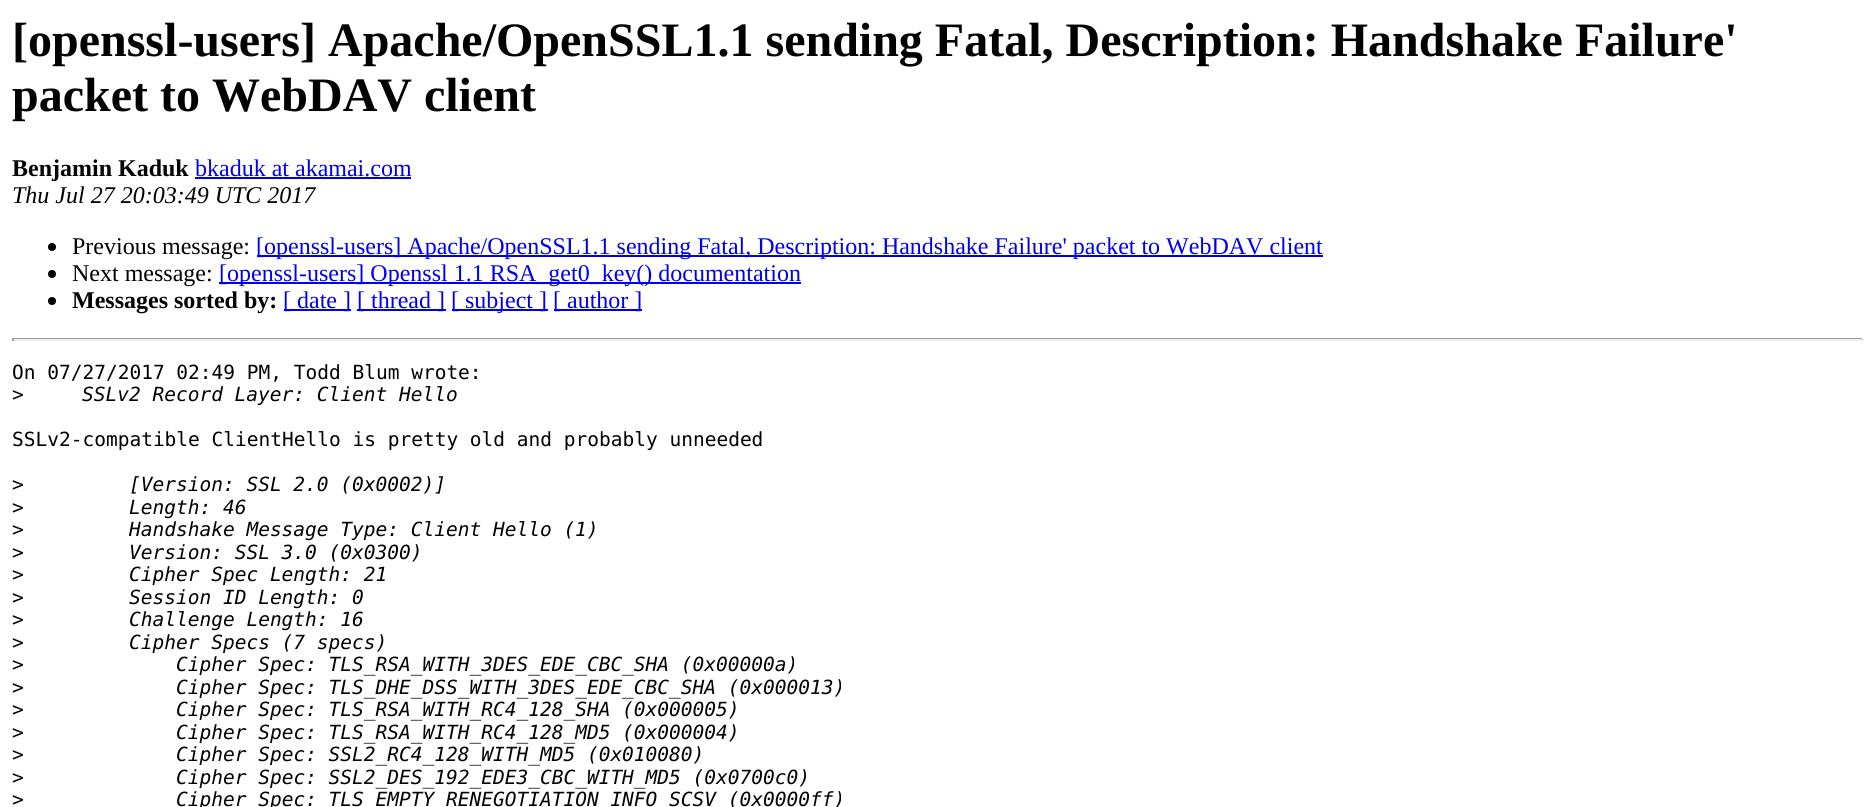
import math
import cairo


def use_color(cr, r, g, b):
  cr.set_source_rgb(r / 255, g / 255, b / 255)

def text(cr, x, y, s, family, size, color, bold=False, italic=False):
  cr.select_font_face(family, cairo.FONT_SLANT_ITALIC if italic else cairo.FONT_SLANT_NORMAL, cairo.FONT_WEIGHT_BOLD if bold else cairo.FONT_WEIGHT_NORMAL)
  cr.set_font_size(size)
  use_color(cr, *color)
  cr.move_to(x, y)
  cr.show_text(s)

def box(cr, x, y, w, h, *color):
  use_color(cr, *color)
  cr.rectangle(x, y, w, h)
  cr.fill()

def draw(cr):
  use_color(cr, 255, 255, 255)
  cr.paint()
  box(cr, 195, 177, 216, 2, 0, 0, 238)
  use_color(cr, 0, 0, 0)
  cr.arc(52, 247, 4, 0, 2 * math.pi)
  cr.fill()
  box(cr, 257, 255, 1066, 2, 0, 0, 238)
  use_color(cr, 0, 0, 0)
  cr.arc(52, 274, 4, 0, 2 * math.pi)
  cr.fill()
  box(cr, 219, 282, 582, 2, 0, 0, 238)
  use_color(cr, 0, 0, 0)
  cr.arc(52, 301, 4, 0, 2 * math.pi)
  cr.fill()
  box(cr, 284, 309, 67, 2, 0, 0, 238)
  box(cr, 357, 309, 89, 2, 0, 0, 238)
  box(cr, 452, 309, 96, 2, 0, 0, 238)
  box(cr, 554, 309, 88, 2, 0, 0, 238)
  box(cr, 12, 338, 1851, 1, 159, 159, 159)
  box(cr, 1862, 338, 2, 3, 238, 238, 238)
  box(cr, 12, 339, 1851, 2, 238, 238, 238)
  box(cr, 12, 338, 2, 3, 159, 159, 159)
  text(cr, 12, 56, "[openssl-users] Apache/OpenSSL1.1 sending Fatal, Description: Handshake Failure'", "Liberation Serif", 48, (0, 0, 0), bold=True)
  text(cr, 12, 111, "packet to WebDAV client", "Liberation Serif", 48, (0, 0, 0), bold=True)
  text(cr, 12, 176, "Benjamin Kaduk", "Liberation Serif", 24, (0, 0, 0), bold=True)
  text(cr, 195, 176, "bkaduk at akamai.com", "Liberation Serif", 24, (0, 0, 238))
  text(cr, 12, 203, "Thu Jul 27 20:03:49 UTC 2017", "Liberation Serif", 24, (0, 0, 0), italic=True)
  text(cr, 72, 254, "Previous message:", "Liberation Serif", 24, (0, 0, 0))
  text(cr, 256, 254, "[openssl-users] Apache/OpenSSL1.1 sending Fatal, Description: Handshake Failure' packet to WebDAV client", "Liberation Serif", 24, (0, 0, 238))
  text(cr, 72, 281, "Next message:", "Liberation Serif", 24, (0, 0, 0))
  text(cr, 219, 281, "[openssl-users] Openssl 1.1 RSA_get0_key() documentation", "Liberation Serif", 24, (0, 0, 238))
  text(cr, 72, 308, "Messages sorted by:", "Liberation Serif", 24, (0, 0, 0), bold=True)
  text(cr, 283, 308, "[ date ]", "Liberation Serif", 24, (0, 0, 238))
  text(cr, 357, 308, "[ thread ]", "Liberation Serif", 24, (0, 0, 238))
  text(cr, 451, 308, "[ subject ]", "Liberation Serif", 24, (0, 0, 238))
  text(cr, 553, 308, "[ author ]", "Liberation Serif", 24, (0, 0, 238))
  text(cr, 12, 379, "On 07/27/2017 02:49 PM, Todd Blum wrote:", "DejaVu Sans Mono", 19.5, (0, 0, 0))
  text(cr, 12, 401, ">", "DejaVu Sans Mono", 19.5, (0, 0, 0))
  text(cr, 82, 401, "SSLv2 Record Layer: Client Hello", "DejaVu Sans Mono", 19.5, (0, 0, 0), italic=True)
  text(cr, 12, 446, "SSLv2-compatible ClientHello is pretty old and probably unneeded", "DejaVu Sans Mono", 19.5, (0, 0, 0))
  text(cr, 12, 491, ">", "DejaVu Sans Mono", 19.5, (0, 0, 0))
  text(cr, 129, 491, "[Version: SSL 2.0 (0x0002)]", "DejaVu Sans Mono", 19.5, (0, 0, 0), italic=True)
  text(cr, 12, 514, ">", "DejaVu Sans Mono", 19.5, (0, 0, 0))
  text(cr, 129, 514, "Length: 46", "DejaVu Sans Mono", 19.5, (0, 0, 0), italic=True)
  text(cr, 12, 536, ">", "DejaVu Sans Mono", 19.5, (0, 0, 0))
  text(cr, 129, 536, "Handshake Message Type: Client Hello (1)", "DejaVu Sans Mono", 19.5, (0, 0, 0), italic=True)
  text(cr, 12, 559, ">", "DejaVu Sans Mono", 19.5, (0, 0, 0))
  text(cr, 129, 559, "Version: SSL 3.0 (0x0300)", "DejaVu Sans Mono", 19.5, (0, 0, 0), italic=True)
  text(cr, 12, 581, ">", "DejaVu Sans Mono", 19.5, (0, 0, 0))
  text(cr, 129, 581, "Cipher Spec Length: 21", "DejaVu Sans Mono", 19.5, (0, 0, 0), italic=True)
  text(cr, 12, 604, ">", "DejaVu Sans Mono", 19.5, (0, 0, 0))
  text(cr, 129, 604, "Session ID Length: 0", "DejaVu Sans Mono", 19.5, (0, 0, 0), italic=True)
  text(cr, 12, 626, ">", "DejaVu Sans Mono", 19.5, (0, 0, 0))
  text(cr, 129, 626, "Challenge Length: 16", "DejaVu Sans Mono", 19.5, (0, 0, 0), italic=True)
  text(cr, 12, 649, ">", "DejaVu Sans Mono", 19.5, (0, 0, 0))
  text(cr, 129, 649, "Cipher Specs (7 specs)", "DejaVu Sans Mono", 19.5, (0, 0, 0), italic=True)
  text(cr, 12, 671, ">", "DejaVu Sans Mono", 19.5, (0, 0, 0))
  text(cr, 176, 671, "Cipher Spec: TLS_RSA_WITH_3DES_EDE_CBC_SHA (0x00000a)", "DejaVu Sans Mono", 19.5, (0, 0, 0), italic=True)
  text(cr, 12, 694, ">", "DejaVu Sans Mono", 19.5, (0, 0, 0))
  text(cr, 176, 694, "Cipher Spec: TLS_DHE_DSS_WITH_3DES_EDE_CBC_SHA (0x000013)", "DejaVu Sans Mono", 19.5, (0, 0, 0), italic=True)
  text(cr, 12, 716, ">", "DejaVu Sans Mono", 19.5, (0, 0, 0))
  text(cr, 176, 716, "Cipher Spec: TLS_RSA_WITH_RC4_128_SHA (0x000005)", "DejaVu Sans Mono", 19.5, (0, 0, 0), italic=True)
  text(cr, 12, 739, ">", "DejaVu Sans Mono", 19.5, (0, 0, 0))
  text(cr, 176, 739, "Cipher Spec: TLS_RSA_WITH_RC4_128_MD5 (0x000004)", "DejaVu Sans Mono", 19.5, (0, 0, 0), italic=True)
  text(cr, 12, 761, ">", "DejaVu Sans Mono", 19.5, (0, 0, 0))
  text(cr, 176, 761, "Cipher Spec: SSL2_RC4_128_WITH_MD5 (0x010080)", "DejaVu Sans Mono", 19.5, (0, 0, 0), italic=True)
  text(cr, 12, 784, ">", "DejaVu Sans Mono", 19.5, (0, 0, 0))
  text(cr, 176, 784, "Cipher Spec: SSL2_DES_192_EDE3_CBC_WITH_MD5 (0x0700c0)", "DejaVu Sans Mono", 19.5, (0, 0, 0), italic=True)
  text(cr, 12, 806, ">", "DejaVu Sans Mono", 19.5, (0, 0, 0))
  text(cr, 176, 806, "Cipher Spec: TLS_EMPTY_RENEGOTIATION_INFO_SCSV (0x0000ff)", "DejaVu Sans Mono", 19.5, (0, 0, 0), italic=True)


surface = cairo.ImageSurface(cairo.FORMAT_RGB24, 1874, 807)
cr = cairo.Context(surface)
options = cairo.FontOptions()
options.set_hint_metrics(cairo.HINT_METRICS_OFF)
options.set_hint_style(cairo.HINT_STYLE_NONE)
cr.set_font_options(options)
cr.set_miter_limit(4)
draw(cr)
surface.write_to_png("out.png")
